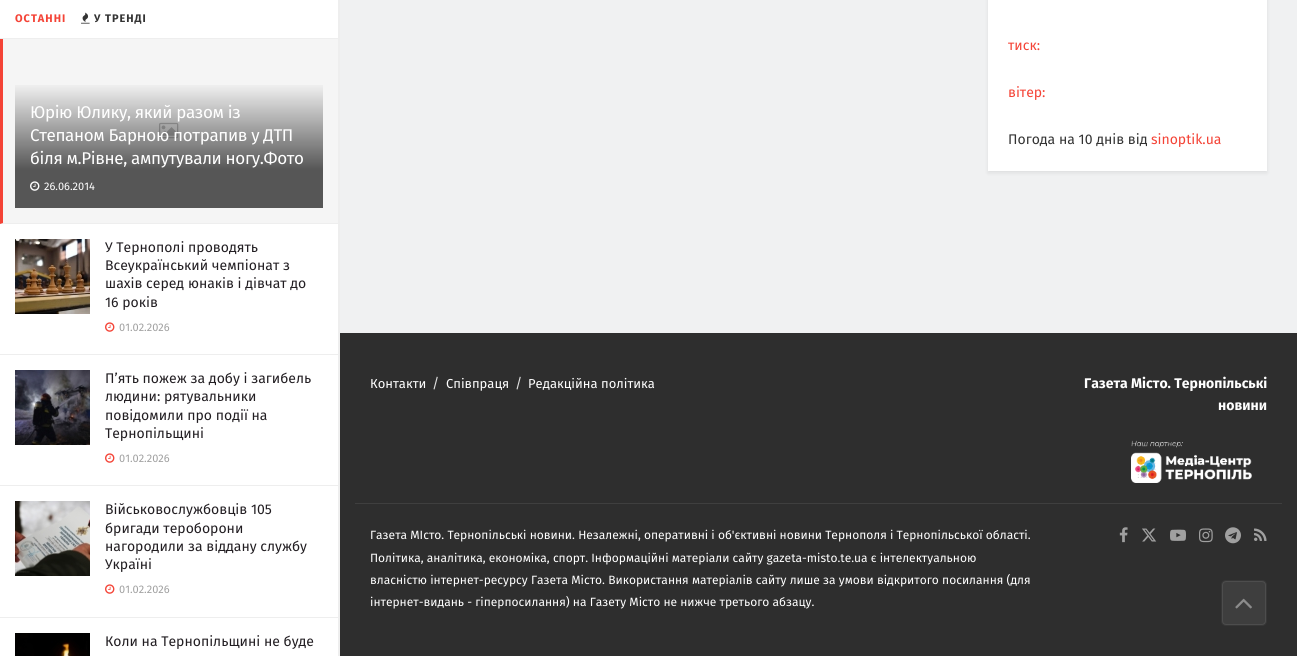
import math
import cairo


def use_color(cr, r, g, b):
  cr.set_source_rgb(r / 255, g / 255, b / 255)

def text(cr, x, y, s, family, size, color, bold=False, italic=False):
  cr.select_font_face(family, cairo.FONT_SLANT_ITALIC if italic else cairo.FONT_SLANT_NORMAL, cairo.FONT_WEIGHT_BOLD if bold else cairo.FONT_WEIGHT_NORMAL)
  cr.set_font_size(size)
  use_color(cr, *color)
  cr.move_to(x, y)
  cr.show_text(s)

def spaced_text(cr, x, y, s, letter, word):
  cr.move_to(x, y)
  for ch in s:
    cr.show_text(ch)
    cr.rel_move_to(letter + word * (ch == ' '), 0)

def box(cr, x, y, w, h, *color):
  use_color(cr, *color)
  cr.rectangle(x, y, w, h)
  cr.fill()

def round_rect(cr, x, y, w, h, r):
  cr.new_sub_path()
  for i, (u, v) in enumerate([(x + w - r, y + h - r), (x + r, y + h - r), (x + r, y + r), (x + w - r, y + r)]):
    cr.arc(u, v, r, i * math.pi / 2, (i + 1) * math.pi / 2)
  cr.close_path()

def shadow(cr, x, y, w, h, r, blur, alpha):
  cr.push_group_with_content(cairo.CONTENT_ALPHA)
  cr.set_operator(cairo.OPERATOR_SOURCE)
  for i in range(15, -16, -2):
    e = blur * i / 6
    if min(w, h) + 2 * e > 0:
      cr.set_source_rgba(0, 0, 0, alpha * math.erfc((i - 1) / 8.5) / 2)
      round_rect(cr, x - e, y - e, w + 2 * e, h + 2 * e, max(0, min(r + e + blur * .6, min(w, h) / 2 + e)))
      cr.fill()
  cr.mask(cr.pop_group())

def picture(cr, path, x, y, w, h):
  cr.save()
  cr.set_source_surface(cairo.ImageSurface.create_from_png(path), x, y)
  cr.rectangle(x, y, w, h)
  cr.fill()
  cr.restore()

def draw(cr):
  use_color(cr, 255, 255, 255)
  cr.paint()
  box(cr, 338, 0, 2, 656, 238, 238, 238)
  box(cr, 0, 38, 338, 1, 238, 238, 238)
  picture(cr, "img_01.png", 81, 12, 9, 12)
  box(cr, 0, 39, 338, 185, 245, 245, 245)
  use_color(cr, 238, 238, 238)
  cr.new_path()
  cr.move_to(338, 224)
  cr.line_to(0, 224)
  cr.line_to(3, 223)
  cr.line_to(338, 223)
  cr.close_path()
  cr.fill()
  use_color(cr, 244, 67, 54)
  cr.new_path()
  cr.move_to(0, 224)
  cr.line_to(0, 39)
  cr.line_to(3, 39)
  cr.line_to(3, 223)
  cr.close_path()
  cr.fill()
  picture(cr, "img_03.png", 159, 122, 20, 17)
  gradient = cairo.LinearGradient(169, 82, 169, 208)
  gradient.add_color_stop_rgba(0, 0, 0, 0, 0)
  gradient.add_color_stop_rgba(0.7, 0, 0, 0, 0.65)
  cr.set_source(gradient)
  cr.rectangle(15, 85, 308, 123)
  cr.fill()
  picture(cr, "img_02.png", 30, 181, 10, 10)
  box(cr, 0, 354, 338, 1, 238, 238, 238)
  picture(cr, "img_04.png", 15, 239, 75, 75)
  picture(cr, "img_05.png", 105, 322, 10, 10)
  box(cr, 0, 485, 338, 1, 238, 238, 238)
  picture(cr, "img_06.png", 15, 370, 75, 75)
  picture(cr, "img_05.png", 105, 453, 10, 10)
  box(cr, 0, 617, 338, 1, 238, 238, 238)
  picture(cr, "img_07.png", 15, 501, 75, 75)
  picture(cr, "img_05.png", 105, 584, 10, 10)
  picture(cr, "img_08.png", 15, 633, 75, 23)
  box(cr, 340, 0, 957, 333, 240, 241, 242)
  use_color(cr, 0, 0, 0)
  shadow(cr, 988, -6, 279, 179, 0, 2, 0.08)
  box(cr, 988, 0, 279, 171, 255, 255, 255)
  box(cr, 340, 333, 957, 323, 46, 46, 46)
  picture(cr, "img_09.png", 1131, 440, 121, 43)
  box(cr, 355, 503, 927, 1, 63, 63, 63)
  picture(cr, "img_10.png", 1119, 527, 9, 16)
  picture(cr, "img_11.png", 1142, 528, 15, 14)
  picture(cr, "img_12.png", 1170, 529, 16, 12)
  picture(cr, "img_13.png", 1199, 528, 14, 15)
  picture(cr, "img_14.png", 1225, 527, 16, 17)
  picture(cr, "img_15.png", 1254, 528, 13, 13)
  use_color(cr, 62, 62, 62)
  round_rect(cr, 1221, 580, 46, 46, 5)
  cr.fill()
  round_rect(cr, 1222.5, 581.5, 43, 43, 3.5)
  use_color(cr, 77, 77, 77)
  cr.set_line_width(1)
  cr.stroke()
  round_rect(cr, 1221.5, 580.5, 45, 45, 4.5)
  cr.set_source_rgba(0.035, 0.035, 0.035, 0.11)
  cr.stroke()
  picture(cr, "img_16.png", 1235, 598, 17, 11)
  cr.select_font_face("Fira Sans", cairo.FONT_SLANT_NORMAL, cairo.FONT_WEIGHT_BOLD)
  cr.set_font_size(11)
  use_color(cr, 244, 67, 54)
  spaced_text(cr, 15, 22, "ОСТАННІ", 1, 0)
  use_color(cr, 51, 51, 51)
  spaced_text(cr, 94, 22, "У ТРЕНДІ", 1, 0)
  cr.select_font_face("Fira Sans")
  cr.set_font_size(17)
  use_color(cr, 255, 255, 255)
  spaced_text(cr, 30, 118, "Юрію Юлику, який разом із", -0.35, 0)
  spaced_text(cr, 30, 141, "Степаном Барною потрапив у ДТП", -0.35, 0)
  spaced_text(cr, 30, 164, "біля м.Рівне, ампутували ногу.Фото", -0.35, 0)
  text(cr, 44, 190, "26.06.2014", "Fira Sans", 11, (255, 255, 255))
  text(cr, 105, 252, "У Тернополі проводять", "Fira Sans", 14, (34, 30, 34))
  text(cr, 105, 270, "Всеукраїнський чемпіонат з", "Fira Sans", 14, (34, 30, 34))
  text(cr, 105, 288, "шахів серед юнаків і дівчат до", "Fira Sans", 14, (34, 30, 34))
  text(cr, 105, 307, "16 років", "Fira Sans", 14, (34, 30, 34))
  text(cr, 119, 331, "01.02.2026", "Fira Sans", 11, (160, 160, 160))
  text(cr, 105, 383, "П’ять пожеж за добу і загибель", "Fira Sans", 14, (34, 30, 34))
  text(cr, 105, 401, "людини: рятувальники", "Fira Sans", 14, (34, 30, 34))
  text(cr, 105, 420, "повідомили про події на", "Fira Sans", 14, (34, 30, 34))
  text(cr, 105, 438, "Тернопільщині", "Fira Sans", 14, (34, 30, 34))
  text(cr, 119, 462, "01.02.2026", "Fira Sans", 11, (160, 160, 160))
  text(cr, 105, 514, "Військовослужбовців 105", "Fira Sans", 14, (34, 30, 34))
  text(cr, 105, 533, "бригади тероборони", "Fira Sans", 14, (34, 30, 34))
  text(cr, 105, 551, "нагородили за віддану службу", "Fira Sans", 14, (34, 30, 34))
  text(cr, 105, 569, "Україні", "Fira Sans", 14, (34, 30, 34))
  text(cr, 119, 593, "01.02.2026", "Fira Sans", 11, (160, 160, 160))
  text(cr, 105, 646, "Коли на Тернопільщині не буде", "Fira Sans", 14, (34, 30, 34))
  text(cr, 1008, 50, "тиск:", "Fira Sans", 14, (244, 67, 54))
  text(cr, 1008, 97, "вітер:", "Fira Sans", 14, (244, 67, 54))
  text(cr, 1008, 144, "Погода на 10 днів від", "Fira Sans", 14, (51, 51, 51))
  text(cr, 1151, 144, "sinoptik.ua", "Fira Sans", 14, (244, 67, 54))
  text(cr, 370, 388, "Контакти", "Fira Sans", 13, (255, 255, 255))
  text(cr, 432, 388, "/", "Fira Sans", 14, (224, 224, 224))
  text(cr, 446, 388, "Співпраця", "Fira Sans", 13, (255, 255, 255))
  text(cr, 515, 388, "/", "Fira Sans", 14, (224, 224, 224))
  text(cr, 528, 388, "Редакційна політика", "Fira Sans", 13, (255, 255, 255))
  text(cr, 1084, 388, "Газета Місто. Тернопільські", "Fira Sans", 14, (255, 255, 255), bold=True)
  text(cr, 1218, 410, "новини", "Fira Sans", 14, (255, 255, 255), bold=True)
  text(cr, 370, 539, "Газета МІсто. Тернопільські новини. Незалежні, оперативні і об'єктивні новини Тернополя і Тернопільської області.", "Fira Sans", 12, (255, 255, 255))
  text(cr, 370, 562, "Політика, аналітика, економіка, спорт. Інформаційні матеріали сайту gazeta-misto.te.ua є інтелектуальною", "Fira Sans", 12, (255, 255, 255))
  text(cr, 370, 584, "власністю інтернет-ресурсу Газета Місто. Використання матеріалів сайту лише за умови відкритого посилання (для", "Fira Sans", 12, (255, 255, 255))
  text(cr, 370, 606, "інтернет-видань - гіперпосилання) на Газету Місто не нижче третього абзацу.", "Fira Sans", 12, (255, 255, 255))


surface = cairo.ImageSurface(cairo.FORMAT_RGB24, 1297, 656)
cr = cairo.Context(surface)
options = cairo.FontOptions()
options.set_hint_metrics(cairo.HINT_METRICS_OFF)
options.set_hint_style(cairo.HINT_STYLE_NONE)
cr.set_font_options(options)
cr.set_miter_limit(4)
draw(cr)
surface.write_to_png("out.png")
